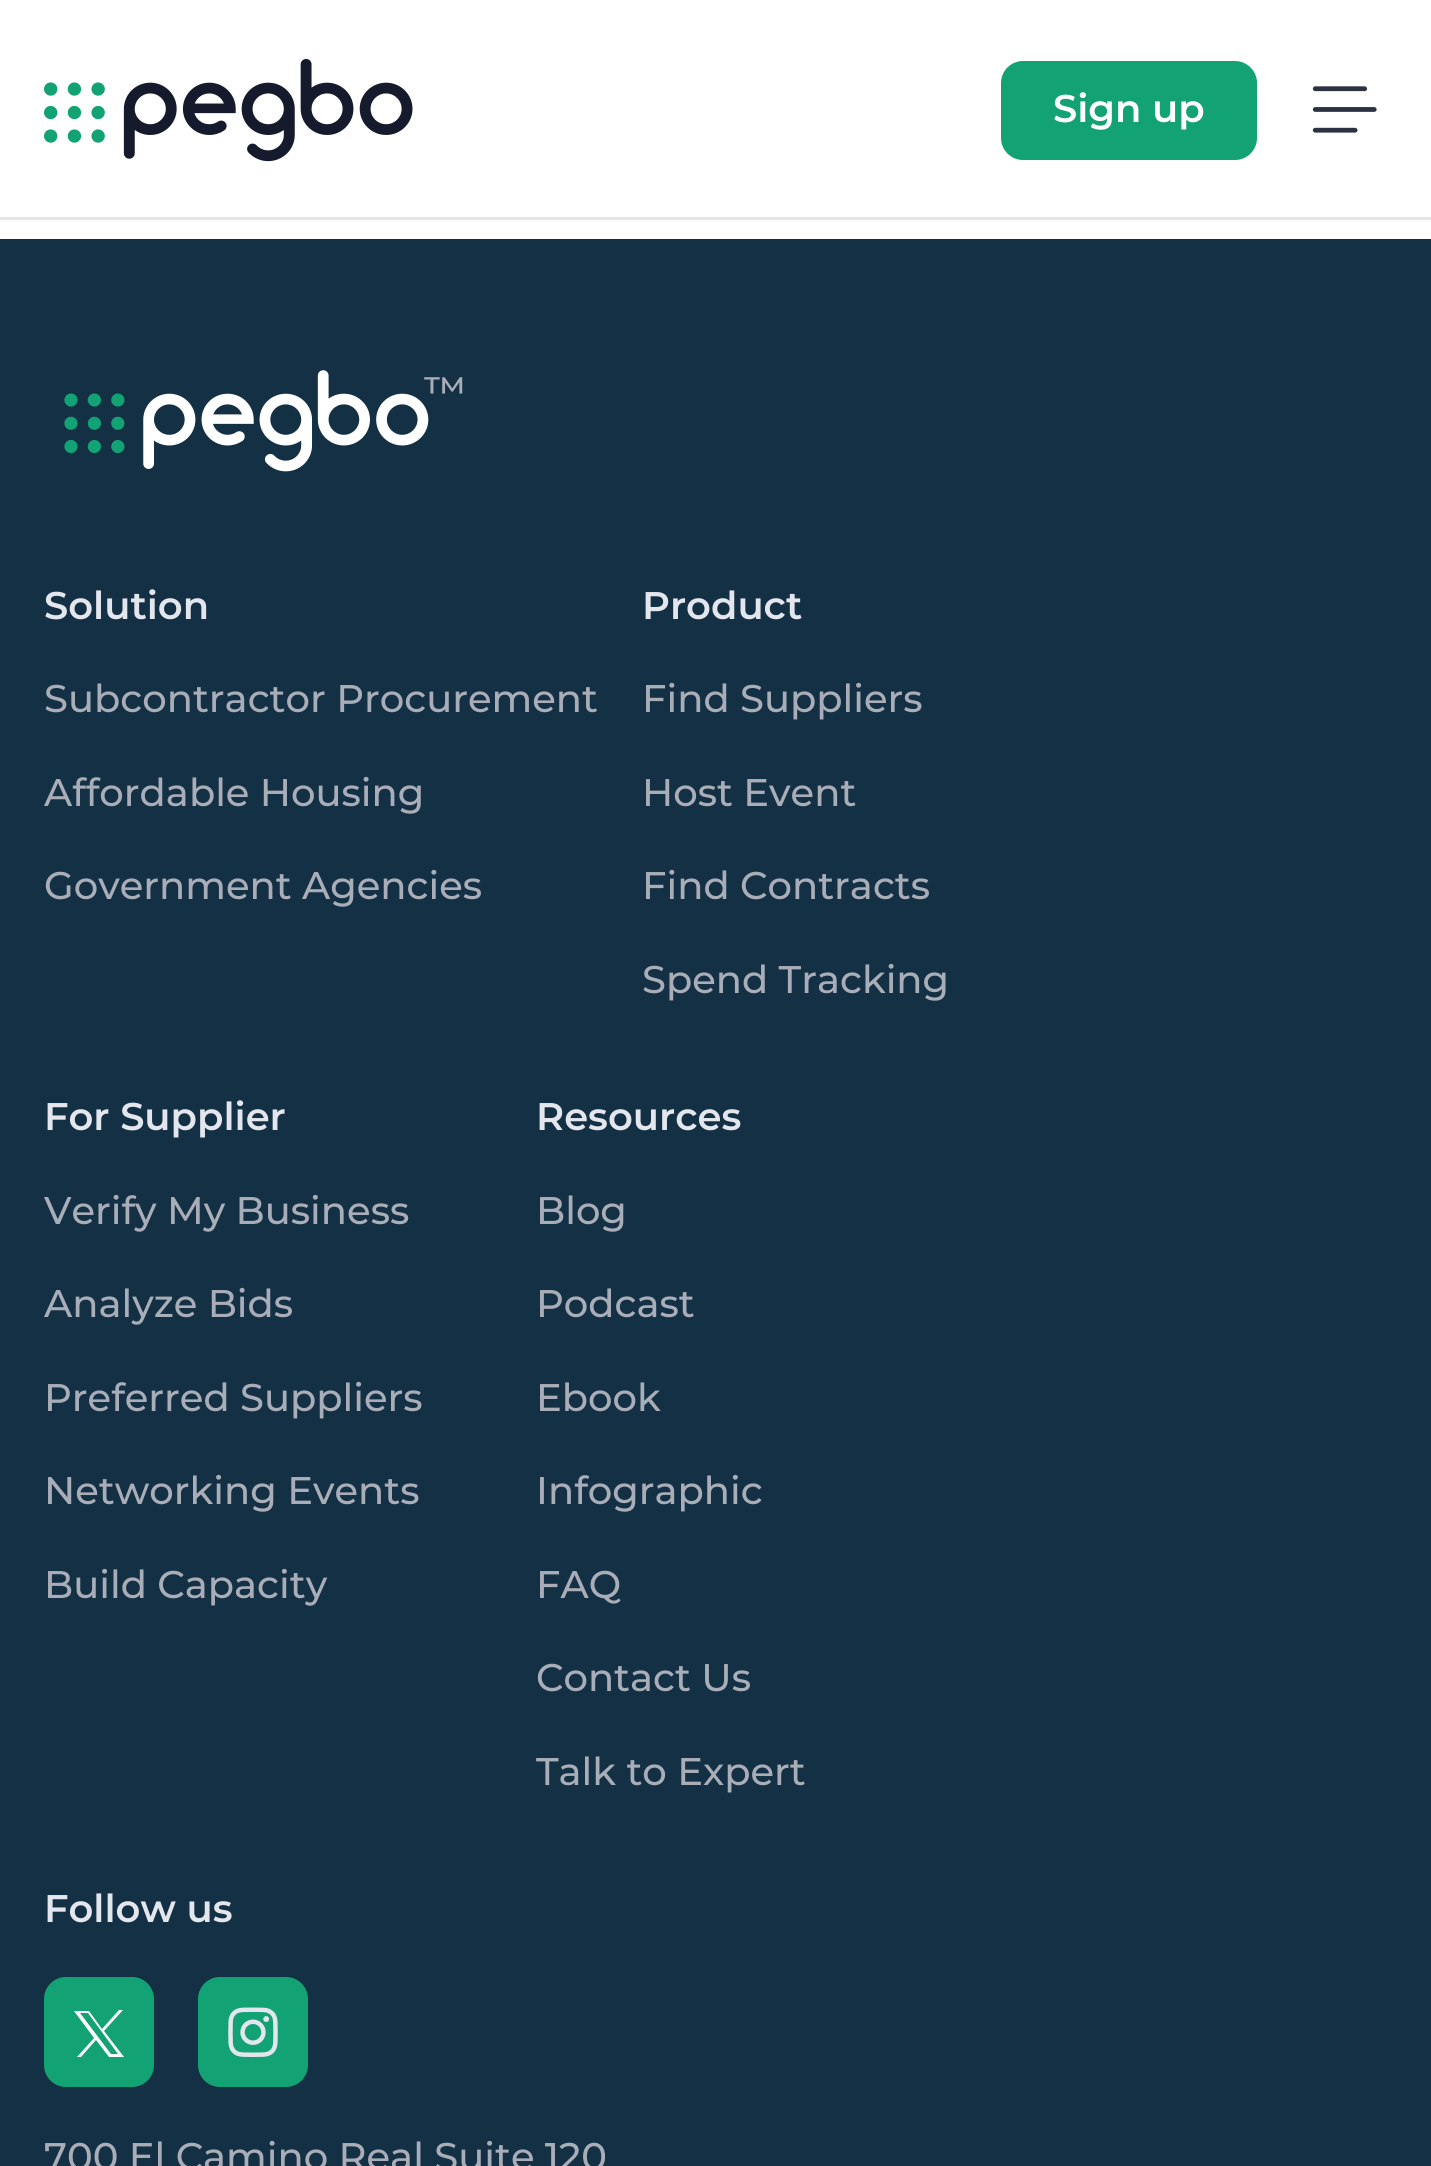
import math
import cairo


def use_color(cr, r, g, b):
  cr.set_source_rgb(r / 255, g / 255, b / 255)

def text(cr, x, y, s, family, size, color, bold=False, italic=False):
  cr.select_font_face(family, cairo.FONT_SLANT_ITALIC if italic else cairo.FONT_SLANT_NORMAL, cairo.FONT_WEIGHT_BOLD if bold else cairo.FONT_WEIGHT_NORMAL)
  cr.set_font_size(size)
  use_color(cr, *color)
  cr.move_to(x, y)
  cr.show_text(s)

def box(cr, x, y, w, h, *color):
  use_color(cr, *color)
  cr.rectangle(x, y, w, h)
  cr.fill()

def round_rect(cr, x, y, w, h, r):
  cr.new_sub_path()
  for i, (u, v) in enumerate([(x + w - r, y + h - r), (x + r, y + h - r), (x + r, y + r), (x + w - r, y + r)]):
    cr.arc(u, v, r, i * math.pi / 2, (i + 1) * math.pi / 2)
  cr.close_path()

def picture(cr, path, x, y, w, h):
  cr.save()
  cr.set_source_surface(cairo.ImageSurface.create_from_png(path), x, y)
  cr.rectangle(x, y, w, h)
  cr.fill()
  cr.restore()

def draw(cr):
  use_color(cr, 19, 48, 68)
  cr.paint()
  box(cr, 0, 0, 1431, 217, 255, 255, 255)
  box(cr, 0, 217, 1431, 3, 228, 230, 237)
  picture(cr, "img_01.png", 44, 58, 369, 104)
  use_color(cr, 18, 162, 116)
  round_rect(cr, 1001, 61, 256, 99, 22)
  cr.fill()
  picture(cr, "img_02.png", 1312, 86, 65, 47)
  box(cr, 0, 220, 1431, 19, 255, 255, 255)
  picture(cr, "img_03.png", 64, 370, 399, 102)
  use_color(cr, 18, 162, 116)
  round_rect(cr, 44, 1977, 110, 110, 22)
  cr.fill()
  use_color(cr, 255, 255, 255)
  cr.new_path()
  cr.move_to(74, 2011)
  cr.line_to(89, 2011)
  cr.line_to(102, 2029)
  cr.line_to(119, 2010)
  cr.line_to(123, 2010)
  cr.line_to(104, 2031)
  cr.line_to(124, 2057)
  cr.line_to(109, 2057)
  cr.line_to(96, 2040)
  cr.line_to(81, 2057)
  cr.line_to(77, 2057)
  cr.line_to(94, 2038)
  cr.close_path()
  cr.move_to(88, 2013)
  cr.line_to(80, 2013)
  cr.line_to(111, 2054)
  cr.line_to(118, 2054)
  cr.close_path()
  cr.fill()
  use_color(cr, 18, 162, 116)
  round_rect(cr, 198, 1977, 110, 110, 22)
  cr.fill()
  picture(cr, "img_04.png", 228, 2007, 50, 50)
  text(cr, 1053, 122, "Sign up", "Montserrat SemiBold", 38.5, (255, 255, 255))
  text(cr, 44, 619, "Solution", "Montserrat SemiBold", 38.5, (228, 230, 237))
  text(cr, 44, 712, "Subcontractor Procurement", "Montserrat Medium", 38.5, (169, 173, 184))
  text(cr, 44, 806, "Affordable Housing", "Montserrat Medium", 38.5, (169, 173, 184))
  text(cr, 44, 899, "Government Agencies", "Montserrat Medium", 38.5, (169, 173, 184))
  text(cr, 642, 619, "Product", "Montserrat SemiBold", 38.5, (228, 230, 237))
  text(cr, 642, 712, "Find Suppliers", "Montserrat Medium", 38.5, (169, 173, 184))
  text(cr, 642, 806, "Host Event", "Montserrat Medium", 38.5, (169, 173, 184))
  text(cr, 642, 899, "Find Contracts", "Montserrat Medium", 38.5, (169, 173, 184))
  text(cr, 642, 993, "Spend Tracking", "Montserrat Medium", 38.5, (169, 173, 184))
  text(cr, 44, 1130, "For Supplier", "Montserrat SemiBold", 38.5, (228, 230, 237))
  text(cr, 44, 1224, "Verify My Business", "Montserrat Medium", 38.5, (169, 173, 184))
  text(cr, 44, 1317, "Analyze Bids", "Montserrat Medium", 38.5, (169, 173, 184))
  text(cr, 44, 1411, "Preferred Suppliers", "Montserrat Medium", 38.5, (169, 173, 184))
  text(cr, 44, 1504, "Networking Events", "Montserrat Medium", 38.5, (169, 173, 184))
  text(cr, 44, 1598, "Build Capacity", "Montserrat Medium", 38.5, (169, 173, 184))
  text(cr, 536, 1130, "Resources", "Montserrat SemiBold", 38.5, (228, 230, 237))
  text(cr, 536, 1224, "Blog", "Montserrat Medium", 38.5, (169, 173, 184))
  text(cr, 536, 1317, "Podcast", "Montserrat Medium", 38.5, (169, 173, 184))
  text(cr, 536, 1411, "Ebook", "Montserrat Medium", 38.5, (169, 173, 184))
  text(cr, 536, 1504, "Infographic", "Montserrat Medium", 38.5, (169, 173, 184))
  text(cr, 536, 1598, "FAQ", "Montserrat Medium", 38.5, (169, 173, 184))
  text(cr, 536, 1691, "Contact Us", "Montserrat Medium", 38.5, (169, 173, 184))
  text(cr, 536, 1785, "Talk to Expert", "Montserrat Medium", 38.5, (169, 173, 184))
  text(cr, 44, 1922, "Follow us", "Montserrat SemiBold", 38.5, (228, 230, 237))
  text(cr, 44, 2170, "700 El Camino Real Suite 120", "Montserrat Medium", 38.5, (169, 173, 184))


surface = cairo.ImageSurface(cairo.FORMAT_RGB24, 1431, 2166)
cr = cairo.Context(surface)
options = cairo.FontOptions()
options.set_hint_metrics(cairo.HINT_METRICS_OFF)
options.set_hint_style(cairo.HINT_STYLE_NONE)
cr.set_font_options(options)
cr.set_miter_limit(4)
draw(cr)
surface.write_to_png("out.png")
